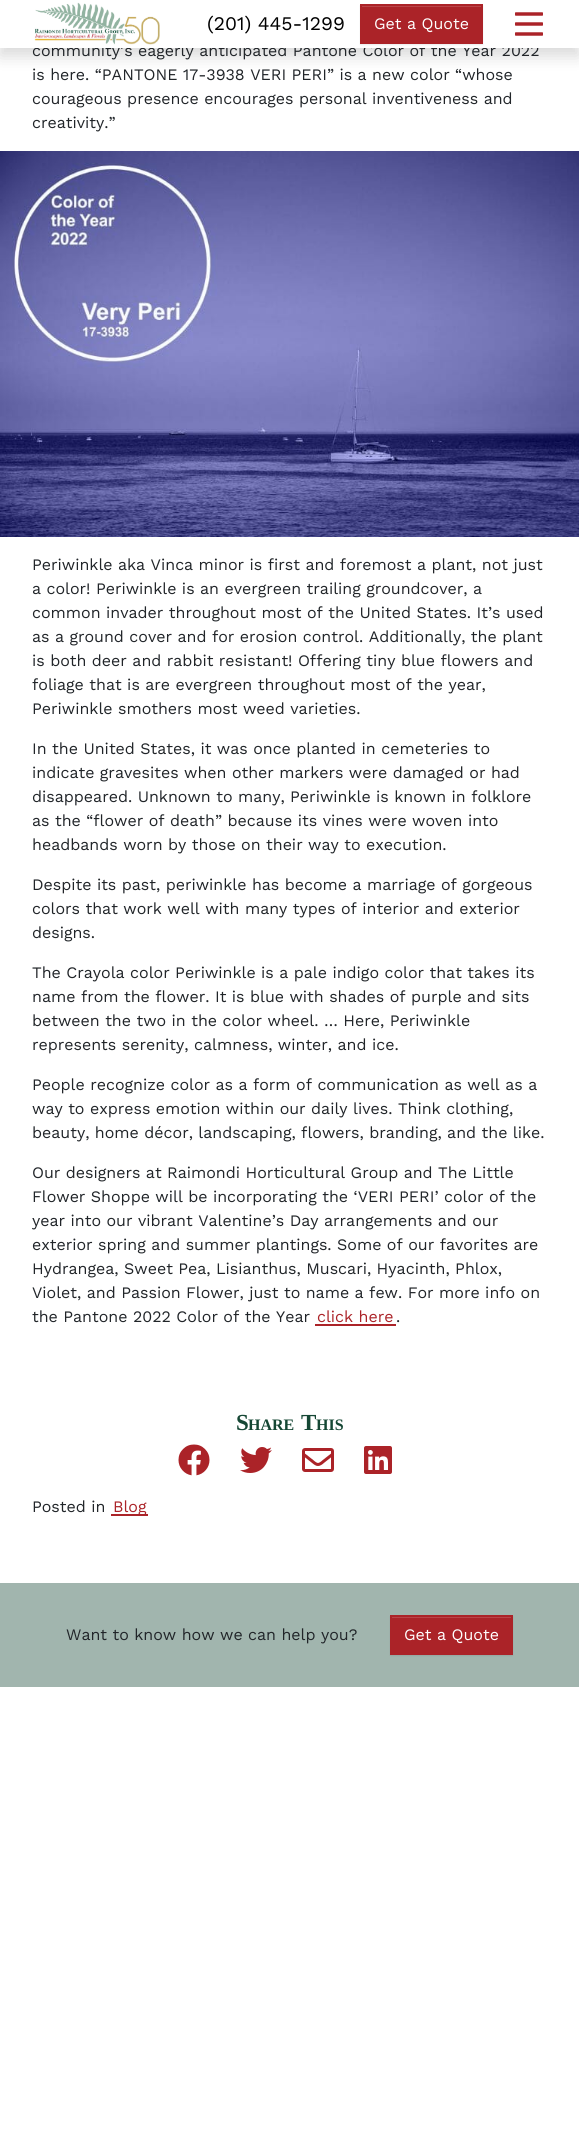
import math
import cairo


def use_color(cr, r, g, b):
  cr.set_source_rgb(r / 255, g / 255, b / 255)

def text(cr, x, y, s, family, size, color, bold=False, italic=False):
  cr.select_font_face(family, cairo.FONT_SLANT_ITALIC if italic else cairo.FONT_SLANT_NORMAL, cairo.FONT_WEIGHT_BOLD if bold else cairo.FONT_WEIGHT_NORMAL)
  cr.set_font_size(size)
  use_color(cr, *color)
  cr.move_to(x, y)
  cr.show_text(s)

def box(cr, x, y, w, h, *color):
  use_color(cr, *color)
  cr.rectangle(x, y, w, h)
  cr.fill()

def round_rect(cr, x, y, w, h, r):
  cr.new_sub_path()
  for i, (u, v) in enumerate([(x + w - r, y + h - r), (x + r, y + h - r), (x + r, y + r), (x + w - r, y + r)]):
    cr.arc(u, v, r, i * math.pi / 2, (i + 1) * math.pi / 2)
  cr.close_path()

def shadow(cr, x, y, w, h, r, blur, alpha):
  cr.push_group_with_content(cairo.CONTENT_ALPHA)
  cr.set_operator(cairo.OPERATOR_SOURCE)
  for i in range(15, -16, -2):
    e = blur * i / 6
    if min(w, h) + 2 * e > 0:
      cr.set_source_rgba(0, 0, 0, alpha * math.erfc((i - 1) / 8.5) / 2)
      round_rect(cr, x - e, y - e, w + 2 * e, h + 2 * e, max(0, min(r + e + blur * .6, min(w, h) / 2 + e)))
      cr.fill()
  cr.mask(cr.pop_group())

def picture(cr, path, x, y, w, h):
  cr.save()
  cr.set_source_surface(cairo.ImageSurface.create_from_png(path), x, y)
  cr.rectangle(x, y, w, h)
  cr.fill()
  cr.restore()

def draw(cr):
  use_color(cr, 255, 255, 255)
  cr.paint()
  use_color(cr, 0, 0, 0)
  shadow(cr, 0, 8, 579, 48, 0, 8, 0.15)
  picture(cr, "img_03.png", 0, 151, 579, 386)
  box(cr, 315, 1324, 81, 2, 171, 35, 40)
  picture(cr, "img_04.png", 178, 1444, 32, 32)
  picture(cr, "img_05.png", 240, 1447, 32, 26)
  picture(cr, "img_06.png", 302, 1448, 32, 24)
  picture(cr, "img_07.png", 364, 1446, 28, 28)
  box(cr, 111, 1514, 37, 2, 171, 35, 40)
  box(cr, 0, 1583, 579, 104, 161, 181, 174)
  use_color(cr, 0, 0, 0)
  shadow(cr, 390, 1616, 123, 40, 0, 0.5, 0.07)
  box(cr, 390, 1615, 123, 40, 171, 35, 40)
  box(cr, 392, 1617, 119, 1, 184, 68, 72)
  text(cr, 32, 56, "community’s eagerly anticipated Pantone Color of the Year 2022", "Work Sans", 16, (33, 37, 41))
  box(cr, 0, 0, 579, 48, 255, 255, 255)
  picture(cr, "img_02.png", 515, 12, 28, 24)
  use_color(cr, 0, 0, 0)
  shadow(cr, 360, 5, 123, 40, 0, 0.5, 0.07)
  box(cr, 360, 4, 123, 40, 171, 35, 40)
  text(cr, 374, 29, "Get a Quote", "Work Sans", 16, (255, 255, 255))
  box(cr, 362, 6, 119, 1, 184, 68, 72)
  text(cr, 207, 30, "(201) 445-1299", "Work Sans", 19.25, (0, 0, 0))
  picture(cr, "img_01.png", 34, 2, 126, 43)
  text(cr, 32, 80, "is here. “PANTONE 17-3938 VERI PERI” is a new color “whose", "Work Sans", 16, (33, 37, 41))
  text(cr, 32, 104, "courageous presence encourages personal inventiveness and", "Work Sans", 16, (33, 37, 41))
  text(cr, 32, 128, "creativity.”", "Work Sans", 16, (33, 37, 41))
  text(cr, 32, 570, "Periwinkle aka Vinca minor is first and foremost a plant, not just", "Work Sans", 16, (33, 37, 41))
  text(cr, 32, 594, "a color! Periwinkle is an evergreen trailing groundcover, a", "Work Sans", 16, (33, 37, 41))
  text(cr, 32, 618, "common invader throughout most of the United States. It’s used", "Work Sans", 16, (33, 37, 41))
  text(cr, 32, 642, "as a ground cover and for erosion control. Additionally, the plant", "Work Sans", 16, (33, 37, 41))
  text(cr, 32, 666, "is both deer and rabbit resistant! Offering tiny blue flowers and", "Work Sans", 16, (33, 37, 41))
  text(cr, 32, 690, "foliage that is are evergreen throughout most of the year,", "Work Sans", 16, (33, 37, 41))
  text(cr, 32, 714, "Periwinkle smothers most weed varieties.", "Work Sans", 16, (33, 37, 41))
  text(cr, 32, 754, "In the United States, it was once planted in cemeteries to", "Work Sans", 16, (33, 37, 41))
  text(cr, 32, 778, "indicate gravesites when other markers were damaged or had", "Work Sans", 16, (33, 37, 41))
  text(cr, 32, 802, "disappeared. Unknown to many, Periwinkle is known in folklore", "Work Sans", 16, (33, 37, 41))
  text(cr, 32, 826, "as the “flower of death” because its vines were woven into", "Work Sans", 16, (33, 37, 41))
  text(cr, 32, 850, "headbands worn by those on their way to execution.", "Work Sans", 16, (33, 37, 41))
  text(cr, 32, 890, "Despite its past, periwinkle has become a marriage of gorgeous", "Work Sans", 16, (33, 37, 41))
  text(cr, 32, 914, "colors that work well with many types of interior and exterior", "Work Sans", 16, (33, 37, 41))
  text(cr, 32, 938, "designs.", "Work Sans", 16, (33, 37, 41))
  text(cr, 32, 978, "The Crayola color Periwinkle is a pale indigo color that takes its", "Work Sans", 16, (33, 37, 41))
  text(cr, 32, 1002, "name from the flower. It is blue with shades of purple and sits", "Work Sans", 16, (33, 37, 41))
  text(cr, 32, 1026, "between the two in the color wheel. … Here, Periwinkle", "Work Sans", 16, (33, 37, 41))
  text(cr, 32, 1050, "represents serenity, calmness, winter, and ice.", "Work Sans", 16, (33, 37, 41))
  text(cr, 32, 1090, "People recognize color as a form of communication as well as a", "Work Sans", 16, (33, 37, 41))
  text(cr, 32, 1114, "way to express emotion within our daily lives. Think clothing,", "Work Sans", 16, (33, 37, 41))
  text(cr, 32, 1138, "beauty, home décor, landscaping, flowers, branding, and the like.", "Work Sans", 16, (33, 37, 41))
  text(cr, 32, 1178, "Our designers at Raimondi Horticultural Group and The Little", "Work Sans", 16, (33, 37, 41))
  text(cr, 32, 1202, "Flower Shoppe will be incorporating the ‘VERI PERI’ color of the", "Work Sans", 16, (33, 37, 41))
  text(cr, 32, 1226, "year into our vibrant Valentine’s Day arrangements and our", "Work Sans", 16, (33, 37, 41))
  text(cr, 32, 1250, "exterior spring and summer plantings. Some of our favorites are", "Work Sans", 16, (33, 37, 41))
  text(cr, 32, 1274, "Hydrangea, Sweet Pea, Lisianthus, Muscari, Hyacinth, Phlox,", "Work Sans", 16, (33, 37, 41))
  text(cr, 32, 1298, "Violet, and Passion Flower, just to name a few. For more info on", "Work Sans", 16, (33, 37, 41))
  text(cr, 32, 1322, "the Pantone 2022 Color of the Year", "Work Sans", 16, (33, 37, 41))
  text(cr, 317, 1322, "click here", "Work Sans", 16, (171, 35, 40))
  text(cr, 396, 1322, ".", "Work Sans", 16, (33, 37, 41))
  text(cr, 236, 1430, "S", "Liberation Serif", 23, (21, 71, 52), bold=True)
  text(cr, 248, 1430, "HARE", "Liberation Serif", 16, (21, 71, 52), bold=True)
  text(cr, 301, 1430, "T", "Liberation Serif", 23, (21, 71, 52), bold=True)
  text(cr, 316, 1430, "HIS", "Liberation Serif", 16, (21, 71, 52), bold=True)
  text(cr, 32, 1512, "Posted in", "Work Sans", 16, (33, 37, 41))
  text(cr, 113, 1512, "Blog", "Work Sans", 16, (171, 35, 40))
  text(cr, 66, 1640, "Want to know how we can help you?", "Work Sans", 16, (33, 37, 41))
  text(cr, 404, 1640, "Get a Quote", "Work Sans", 16, (255, 255, 255))


surface = cairo.ImageSurface(cairo.FORMAT_RGB24, 579, 2138)
cr = cairo.Context(surface)
options = cairo.FontOptions()
options.set_hint_metrics(cairo.HINT_METRICS_OFF)
options.set_hint_style(cairo.HINT_STYLE_NONE)
cr.set_font_options(options)
cr.set_miter_limit(4)
draw(cr)
surface.write_to_png("out.png")
